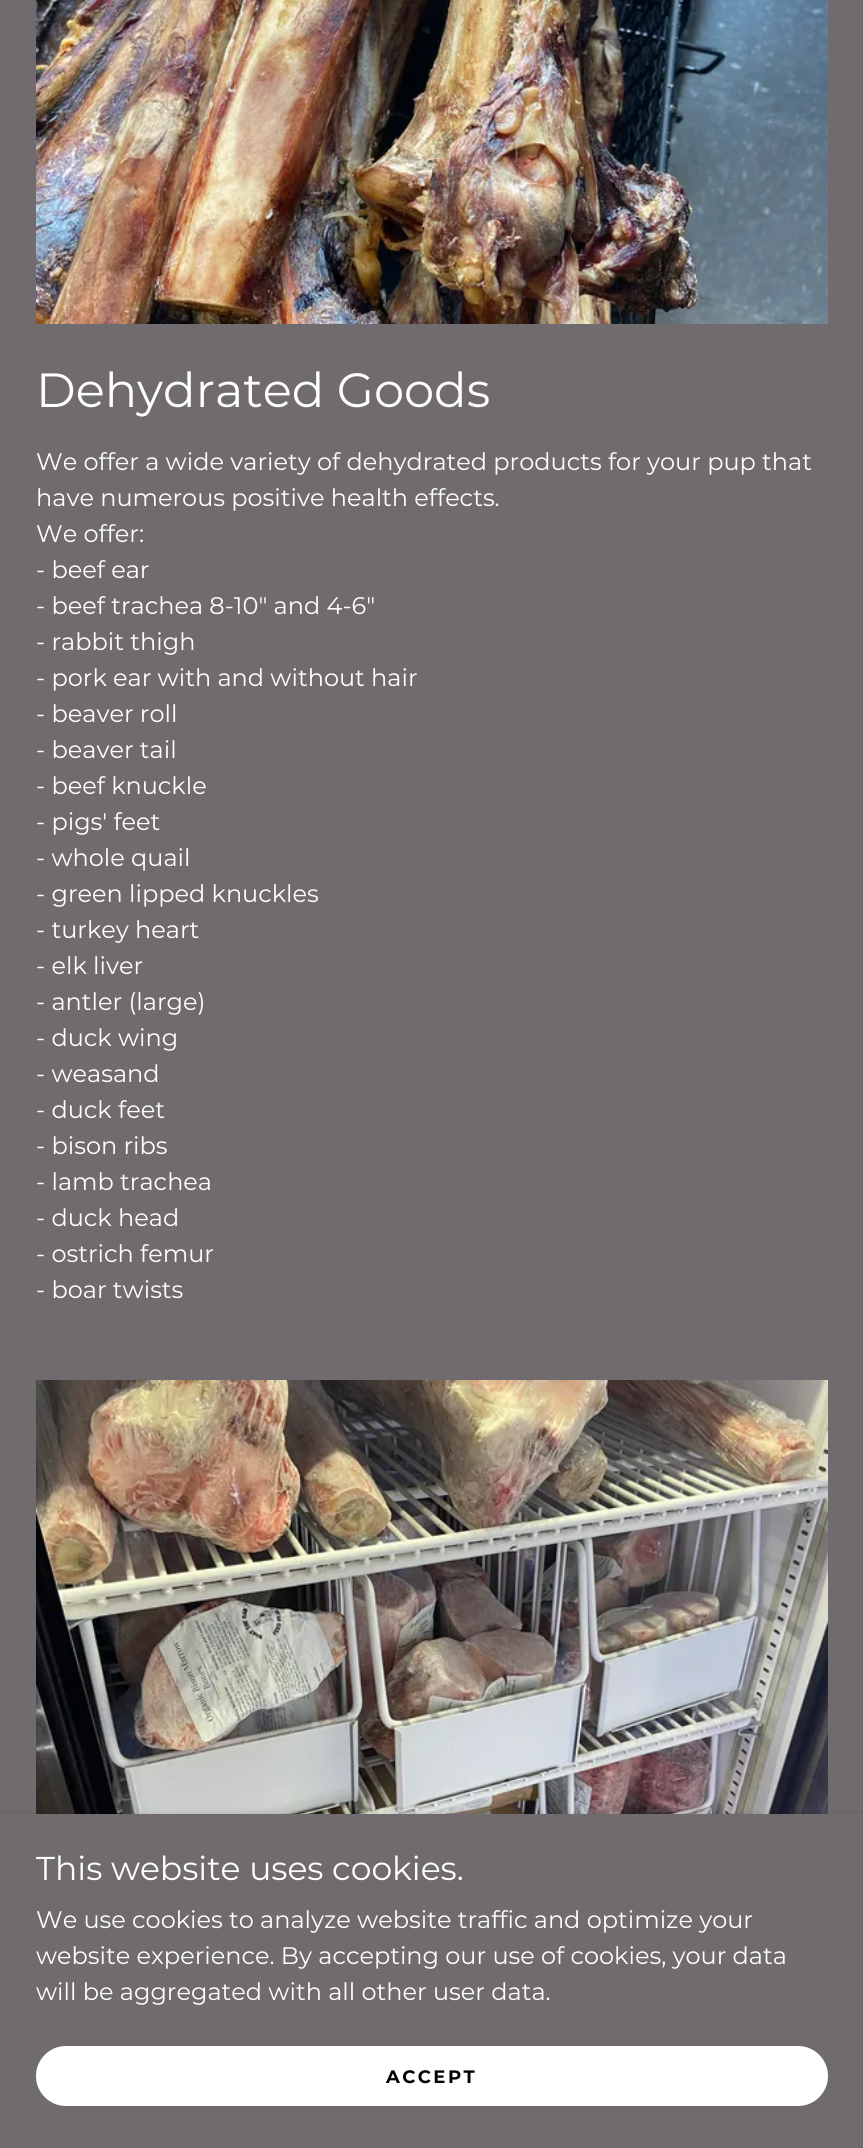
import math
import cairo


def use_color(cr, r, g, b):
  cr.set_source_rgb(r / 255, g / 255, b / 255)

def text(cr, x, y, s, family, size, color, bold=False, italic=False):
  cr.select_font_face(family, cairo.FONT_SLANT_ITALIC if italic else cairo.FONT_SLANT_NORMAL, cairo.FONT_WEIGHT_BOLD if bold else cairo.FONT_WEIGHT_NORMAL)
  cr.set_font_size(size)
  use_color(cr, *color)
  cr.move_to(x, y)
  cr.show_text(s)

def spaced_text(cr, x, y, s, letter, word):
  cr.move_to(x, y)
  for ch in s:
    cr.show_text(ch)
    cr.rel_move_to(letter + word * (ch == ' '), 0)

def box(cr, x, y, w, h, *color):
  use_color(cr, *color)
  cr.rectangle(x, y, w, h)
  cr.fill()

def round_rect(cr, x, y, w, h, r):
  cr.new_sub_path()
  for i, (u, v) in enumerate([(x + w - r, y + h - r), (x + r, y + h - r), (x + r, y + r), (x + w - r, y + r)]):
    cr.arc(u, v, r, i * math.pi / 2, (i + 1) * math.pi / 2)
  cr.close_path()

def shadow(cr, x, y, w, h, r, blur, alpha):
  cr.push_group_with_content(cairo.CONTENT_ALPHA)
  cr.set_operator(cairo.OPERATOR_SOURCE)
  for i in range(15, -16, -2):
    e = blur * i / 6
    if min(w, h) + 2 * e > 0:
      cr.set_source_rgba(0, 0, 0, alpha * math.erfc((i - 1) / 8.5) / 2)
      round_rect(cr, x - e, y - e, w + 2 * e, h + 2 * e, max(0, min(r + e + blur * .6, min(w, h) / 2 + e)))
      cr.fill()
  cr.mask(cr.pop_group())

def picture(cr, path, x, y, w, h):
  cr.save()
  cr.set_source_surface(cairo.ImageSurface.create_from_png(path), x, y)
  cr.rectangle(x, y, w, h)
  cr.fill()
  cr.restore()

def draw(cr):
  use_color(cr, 112, 107, 110)
  cr.paint()
  picture(cr, "img_01.png", 36, 0, 792, 324)
  picture(cr, "img_02.png", 36, 1380, 792, 434)
  use_color(cr, 0, 0, 0)
  shadow(cr, 0, 1817, 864, 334, 0, 4.5, 0.3)
  box(cr, 0, 1814, 863, 334, 112, 107, 110)
  use_color(cr, 255, 255, 255)
  round_rect(cr, 36, 2046, 792, 60, 30)
  cr.fill()
  text(cr, 36, 407, "Dehydrated Goods", "Montserrat", 48, (255, 255, 255))
  text(cr, 36, 470, "We offer a wide variety of dehydrated products for your pup that", "Montserrat", 24, (255, 255, 255))
  text(cr, 36, 506, "have numerous positive health effects.", "Montserrat", 24, (255, 255, 255))
  text(cr, 36, 542, "We offer:", "Montserrat", 24, (255, 255, 255))
  text(cr, 36, 578, "- beef ear", "Montserrat", 24, (255, 255, 255))
  text(cr, 36, 614, "- beef trachea 8-10\" and 4-6\"", "Montserrat", 24, (255, 255, 255))
  text(cr, 36, 650, "- rabbit thigh", "Montserrat", 24, (255, 255, 255))
  text(cr, 36, 686, "- pork ear with and without hair", "Montserrat", 24, (255, 255, 255))
  text(cr, 36, 722, "- beaver roll", "Montserrat", 24, (255, 255, 255))
  text(cr, 36, 758, "- beaver tail", "Montserrat", 24, (255, 255, 255))
  text(cr, 36, 794, "- beef knuckle", "Montserrat", 24, (255, 255, 255))
  text(cr, 36, 830, "- pigs' feet", "Montserrat", 24, (255, 255, 255))
  text(cr, 36, 866, "- whole quail", "Montserrat", 24, (255, 255, 255))
  text(cr, 36, 902, "- green lipped knuckles", "Montserrat", 24, (255, 255, 255))
  text(cr, 36, 938, "- turkey heart", "Montserrat", 24, (255, 255, 255))
  text(cr, 36, 974, "- elk liver", "Montserrat", 24, (255, 255, 255))
  text(cr, 36, 1010, "- antler (large)", "Montserrat", 24, (255, 255, 255))
  text(cr, 36, 1046, "- duck wing", "Montserrat", 24, (255, 255, 255))
  text(cr, 36, 1082, "- weasand", "Montserrat", 24, (255, 255, 255))
  text(cr, 36, 1118, "- duck feet", "Montserrat", 24, (255, 255, 255))
  text(cr, 36, 1154, "- bison ribs", "Montserrat", 24, (255, 255, 255))
  text(cr, 36, 1190, "- lamb trachea", "Montserrat", 24, (255, 255, 255))
  text(cr, 36, 1226, "- duck head", "Montserrat", 24, (255, 255, 255))
  text(cr, 36, 1262, "- ostrich femur", "Montserrat", 24, (255, 255, 255))
  text(cr, 36, 1298, "- boar twists", "Montserrat", 24, (255, 255, 255))
  text(cr, 36, 1880, "This website uses cookies.", "Montserrat", 33, (255, 255, 255))
  text(cr, 36, 1928, "We use cookies to analyze website traffic and optimize your", "Montserrat", 24, (255, 255, 255))
  text(cr, 36, 1964, "website experience. By accepting our use of cookies, your data", "Montserrat", 24, (255, 255, 255))
  text(cr, 36, 2000, "will be aggregated with all other user data.", "Montserrat", 24, (255, 255, 255))
  cr.select_font_face("Montserrat", cairo.FONT_SLANT_NORMAL, cairo.FONT_WEIGHT_BOLD)
  cr.set_font_size(18)
  use_color(cr, 0, 0, 0)
  spaced_text(cr, 386, 2083, "ACCEPT", 2.5, 0)


surface = cairo.ImageSurface(cairo.FORMAT_RGB24, 863, 2148)
cr = cairo.Context(surface)
options = cairo.FontOptions()
options.set_hint_metrics(cairo.HINT_METRICS_OFF)
options.set_hint_style(cairo.HINT_STYLE_NONE)
cr.set_font_options(options)
cr.set_miter_limit(4)
draw(cr)
surface.write_to_png("out.png")
